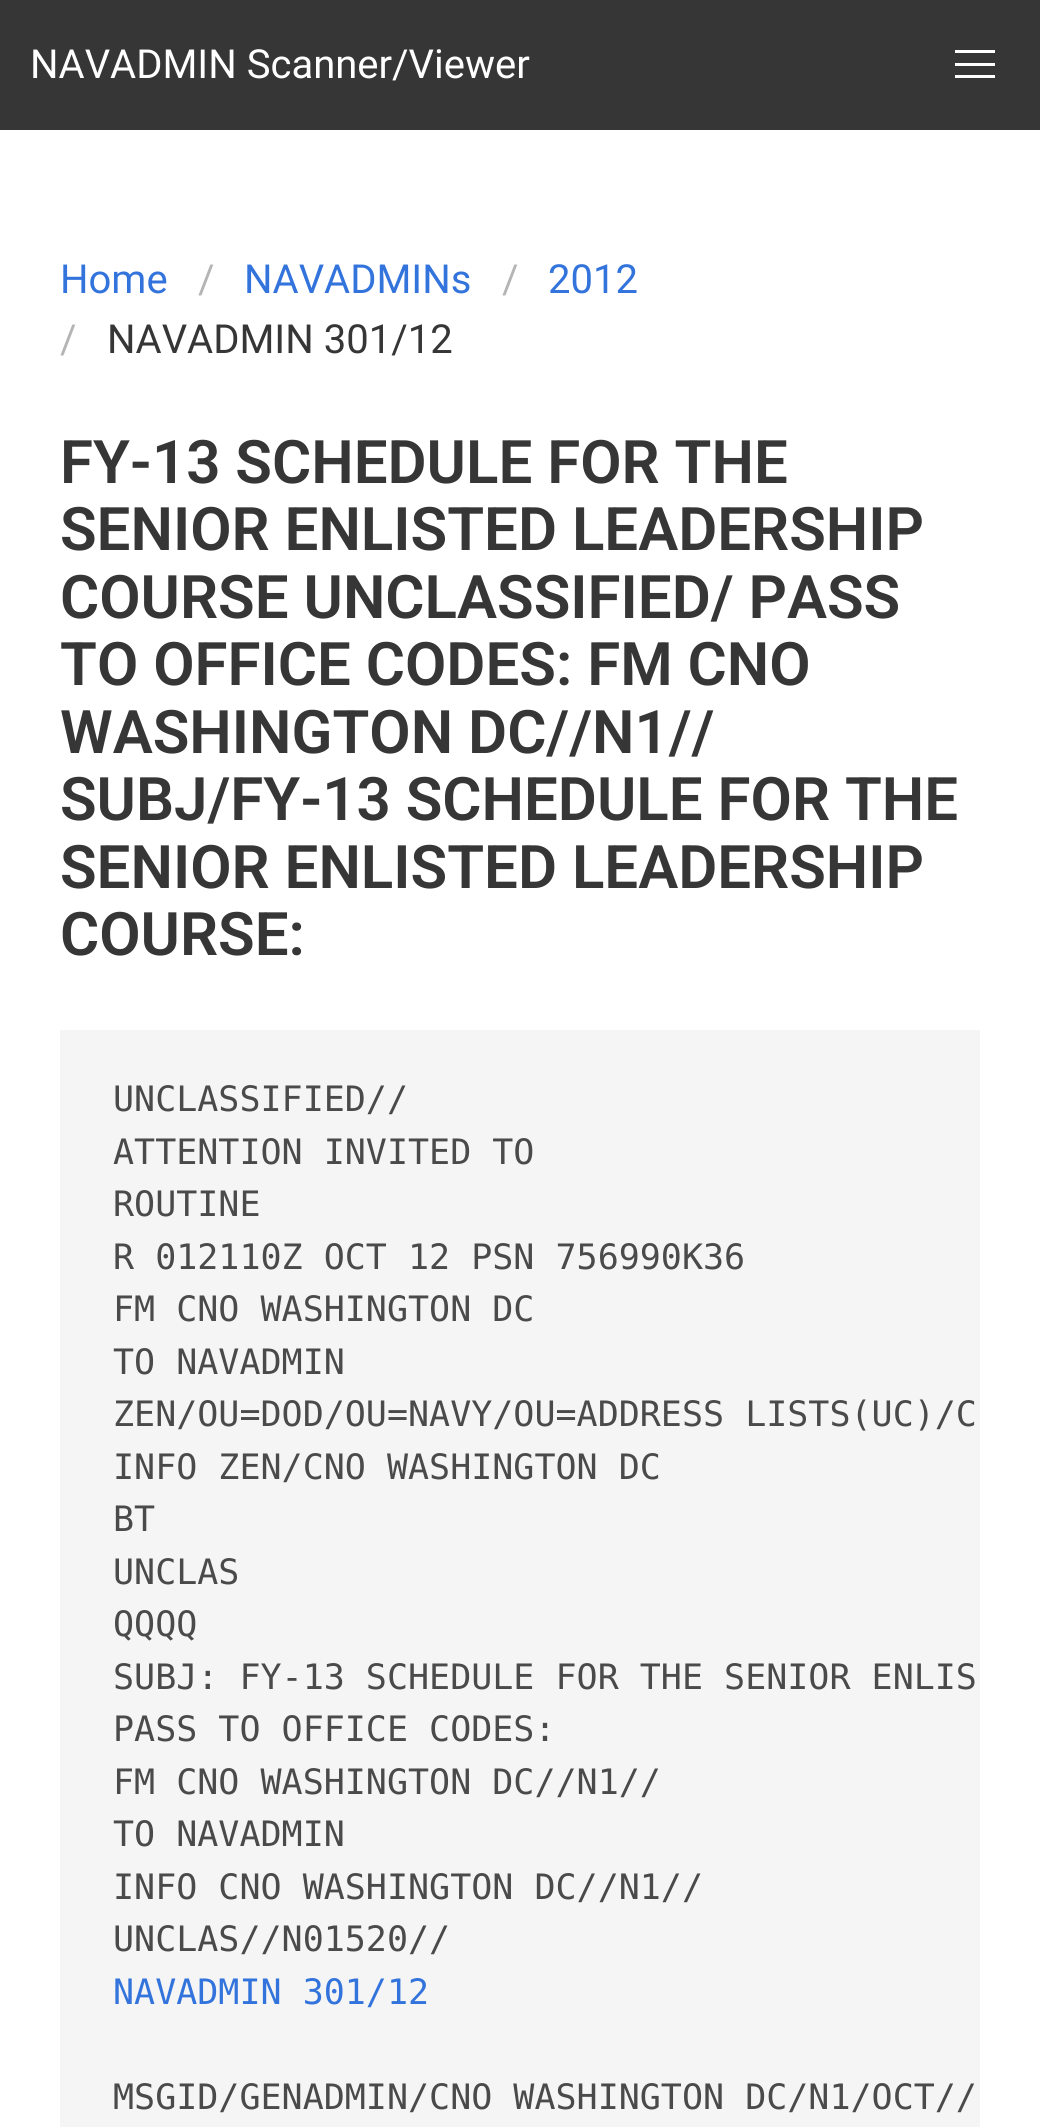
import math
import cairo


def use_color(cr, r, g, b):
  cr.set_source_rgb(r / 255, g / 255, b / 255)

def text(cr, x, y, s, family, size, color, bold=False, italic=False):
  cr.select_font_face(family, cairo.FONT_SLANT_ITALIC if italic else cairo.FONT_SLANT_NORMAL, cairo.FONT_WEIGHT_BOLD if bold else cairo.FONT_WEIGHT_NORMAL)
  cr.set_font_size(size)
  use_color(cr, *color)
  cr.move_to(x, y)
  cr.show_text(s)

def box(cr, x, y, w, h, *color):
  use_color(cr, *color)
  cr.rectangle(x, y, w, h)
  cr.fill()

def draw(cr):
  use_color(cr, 255, 255, 255)
  cr.paint()
  box(cr, 0, 0, 1040, 130, 54, 54, 54)
  box(cr, 955, 50, 40, 3, 255, 255, 255)
  box(cr, 955, 63, 40, 3, 255, 255, 255)
  box(cr, 955, 75, 40, 3, 255, 255, 255)
  box(cr, 60, 1030, 920, 1097, 245, 245, 245)
  text(cr, 30, 78, "NAVADMIN Scanner/Viewer", "Roboto", 40, (255, 255, 255))
  text(cr, 60, 293, "Home", "Roboto", 40, (50, 115, 220))
  text(cr, 198, 293, "/", "Roboto", 40, (181, 181, 181))
  text(cr, 244, 293, "NAVADMINs", "Roboto", 40, (50, 115, 220))
  text(cr, 502, 293, "/", "Roboto", 40, (181, 181, 181))
  text(cr, 548, 293, "2012", "Roboto", 40, (50, 115, 220))
  text(cr, 60, 353, "/", "Roboto", 40, (181, 181, 181))
  text(cr, 107, 353, "NAVADMIN 301/12", "Roboto", 40, (54, 54, 54))
  text(cr, 60, 483, "FY-13 SCHEDULE FOR THE", "Roboto SemiBold", 60, (54, 54, 54))
  text(cr, 60, 550, "SENIOR ENLISTED LEADERSHIP", "Roboto SemiBold", 60, (54, 54, 54))
  text(cr, 60, 618, "COURSE UNCLASSIFIED/ PASS", "Roboto SemiBold", 60, (54, 54, 54))
  text(cr, 60, 685, "TO OFFICE CODES: FM CNO", "Roboto SemiBold", 60, (54, 54, 54))
  text(cr, 60, 753, "WASHINGTON DC//N1//", "Roboto SemiBold", 60, (54, 54, 54))
  text(cr, 60, 820, "SUBJ/FY-13 SCHEDULE FOR THE", "Roboto SemiBold", 60, (54, 54, 54))
  text(cr, 60, 888, "SENIOR ENLISTED LEADERSHIP", "Roboto SemiBold", 60, (54, 54, 54))
  text(cr, 60, 955, "COURSE:", "Roboto SemiBold", 60, (54, 54, 54))
  text(cr, 113, 1111, "UNCLASSIFIED//", "DejaVu Sans Mono", 35, (74, 74, 74))
  text(cr, 113, 1164, "ATTENTION INVITED TO", "DejaVu Sans Mono", 35, (74, 74, 74))
  text(cr, 113, 1216, "ROUTINE", "DejaVu Sans Mono", 35, (74, 74, 74))
  text(cr, 113, 1269, "R 012110Z OCT 12 PSN 756990K36", "DejaVu Sans Mono", 35, (74, 74, 74))
  text(cr, 113, 1321, "FM CNO WASHINGTON DC", "DejaVu Sans Mono", 35, (74, 74, 74))
  text(cr, 113, 1374, "TO NAVADMIN", "DejaVu Sans Mono", 35, (74, 74, 74))
  text(cr, 113, 1426, "ZEN/OU=DOD/OU=NAVY/OU=ADDRESS LISTS(UC)/C", "DejaVu Sans Mono", 35, (74, 74, 74))
  text(cr, 113, 1479, "INFO ZEN/CNO WASHINGTON DC", "DejaVu Sans Mono", 35, (74, 74, 74))
  text(cr, 113, 1531, "BT", "DejaVu Sans Mono", 35, (74, 74, 74))
  text(cr, 113, 1584, "UNCLAS", "DejaVu Sans Mono", 35, (74, 74, 74))
  text(cr, 113, 1636, "QQQQ", "DejaVu Sans Mono", 35, (74, 74, 74))
  text(cr, 113, 1689, "SUBJ: FY-13 SCHEDULE FOR THE SENIOR ENLIS", "DejaVu Sans Mono", 35, (74, 74, 74))
  text(cr, 113, 1741, "PASS TO OFFICE CODES:", "DejaVu Sans Mono", 35, (74, 74, 74))
  text(cr, 113, 1794, "FM CNO WASHINGTON DC//N1//", "DejaVu Sans Mono", 35, (74, 74, 74))
  text(cr, 113, 1846, "TO NAVADMIN", "DejaVu Sans Mono", 35, (74, 74, 74))
  text(cr, 113, 1899, "INFO CNO WASHINGTON DC//N1//", "DejaVu Sans Mono", 35, (74, 74, 74))
  text(cr, 113, 1951, "UNCLAS//N01520//", "DejaVu Sans Mono", 35, (74, 74, 74))
  text(cr, 113, 2004, "NAVADMIN 301/12", "DejaVu Sans Mono", 35, (50, 115, 220))
  text(cr, 113, 2109, "MSGID/GENADMIN/CNO WASHINGTON DC/N1/OCT//", "DejaVu Sans Mono", 35, (74, 74, 74))


surface = cairo.ImageSurface(cairo.FORMAT_RGB24, 1040, 2127)
cr = cairo.Context(surface)
options = cairo.FontOptions()
options.set_hint_metrics(cairo.HINT_METRICS_OFF)
options.set_hint_style(cairo.HINT_STYLE_NONE)
cr.set_font_options(options)
cr.set_miter_limit(4)
draw(cr)
surface.write_to_png("out.png")
